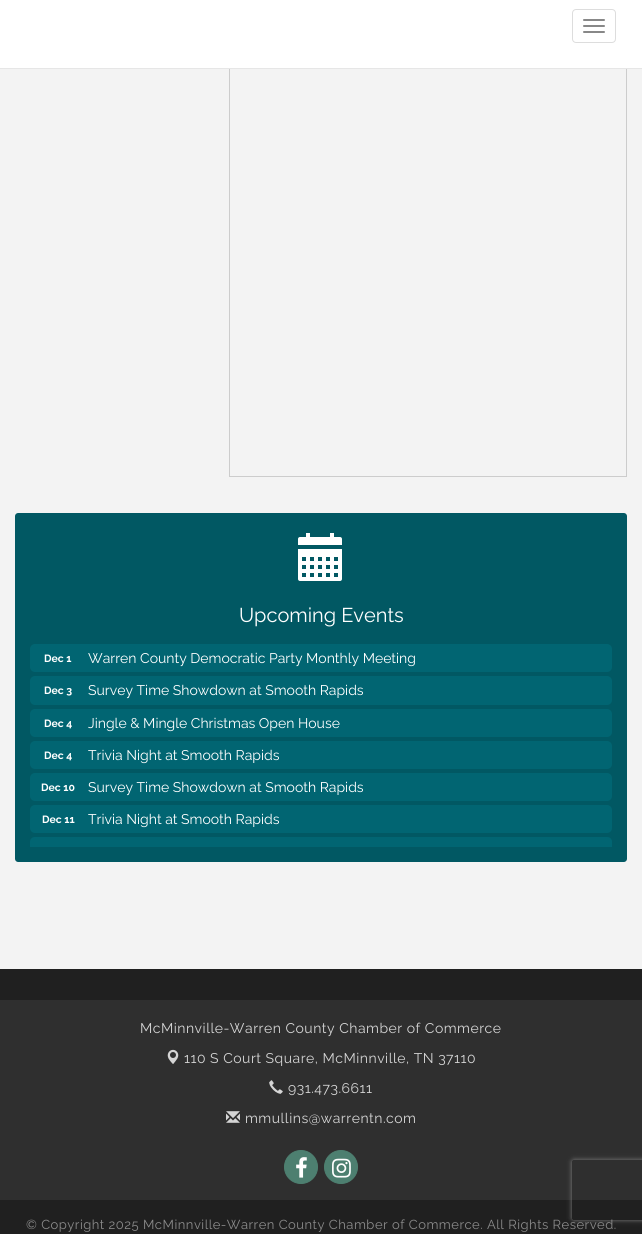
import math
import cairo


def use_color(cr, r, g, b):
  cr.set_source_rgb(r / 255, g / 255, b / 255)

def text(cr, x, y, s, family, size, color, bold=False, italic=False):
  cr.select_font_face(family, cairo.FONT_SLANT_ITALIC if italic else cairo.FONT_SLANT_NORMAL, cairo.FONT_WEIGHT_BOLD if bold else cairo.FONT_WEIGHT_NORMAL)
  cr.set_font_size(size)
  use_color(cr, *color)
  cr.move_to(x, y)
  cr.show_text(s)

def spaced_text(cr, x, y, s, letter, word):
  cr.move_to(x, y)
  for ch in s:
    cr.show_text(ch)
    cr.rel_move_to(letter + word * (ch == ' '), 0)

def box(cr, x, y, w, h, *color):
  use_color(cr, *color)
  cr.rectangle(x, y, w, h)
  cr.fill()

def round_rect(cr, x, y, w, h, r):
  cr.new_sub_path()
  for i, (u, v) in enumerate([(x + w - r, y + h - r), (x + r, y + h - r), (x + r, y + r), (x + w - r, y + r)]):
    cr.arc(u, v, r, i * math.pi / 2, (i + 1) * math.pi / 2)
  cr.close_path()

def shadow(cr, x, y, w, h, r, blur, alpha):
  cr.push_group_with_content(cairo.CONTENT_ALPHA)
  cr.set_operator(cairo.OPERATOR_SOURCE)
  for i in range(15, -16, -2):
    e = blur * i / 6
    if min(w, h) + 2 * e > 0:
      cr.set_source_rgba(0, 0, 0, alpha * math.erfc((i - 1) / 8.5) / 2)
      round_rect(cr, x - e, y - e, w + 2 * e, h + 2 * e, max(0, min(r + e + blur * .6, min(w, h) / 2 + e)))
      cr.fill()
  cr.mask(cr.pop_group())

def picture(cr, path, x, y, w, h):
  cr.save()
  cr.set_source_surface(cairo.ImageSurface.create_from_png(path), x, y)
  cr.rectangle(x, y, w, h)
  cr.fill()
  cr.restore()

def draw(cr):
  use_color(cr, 243, 243, 243)
  cr.paint()
  cr.rectangle(229.5, 39.5, 397, 437)
  use_color(cr, 204, 204, 204)
  cr.set_line_width(1)
  cr.stroke()
  box(cr, 0, 0, 642, 68, 255, 255, 255)
  box(cr, 0, 68, 642, 1, 230, 230, 230)
  round_rect(cr, 572.5, 9.5, 43, 33, 3.5)
  use_color(cr, 221, 221, 221)
  cr.stroke()
  use_color(cr, 136, 136, 136)
  round_rect(cr, 583, 19, 22, 2, 1)
  cr.fill()
  round_rect(cr, 583, 25, 22, 2, 1)
  cr.fill()
  round_rect(cr, 583, 31, 22, 2, 1)
  cr.fill()
  use_color(cr, 1, 88, 99)
  cr.new_path()
  cr.move_to(18, 513)
  cr.line_to(624, 513)
  cr.curve_to(625.5, 513, 627, 514.5, 627, 516)
  cr.line_to(627, 627)
  cr.line_to(15, 627)
  cr.line_to(15, 516)
  cr.curve_to(15, 514.5, 16.5, 513, 18, 513)
  cr.close_path()
  cr.fill()
  picture(cr, "img_01.png", 298, 533, 44, 48)
  cr.new_path()
  cr.move_to(15, 627)
  cr.line_to(627, 627)
  cr.line_to(627, 859)
  cr.curve_to(627, 860.5, 625.5, 862, 624, 862)
  cr.line_to(18, 862)
  cr.curve_to(16.5, 862, 15, 860.5, 15, 859)
  cr.close_path()
  cr.fill()
  use_color(cr, 1, 101, 114)
  round_rect(cr, 30, 644, 582, 28, 5)
  cr.fill()
  round_rect(cr, 30, 676, 582, 29, 5)
  cr.fill()
  round_rect(cr, 30, 709, 582, 28, 5)
  cr.fill()
  round_rect(cr, 30, 741, 582, 28, 5)
  cr.fill()
  round_rect(cr, 30, 773, 582, 28, 5)
  cr.fill()
  round_rect(cr, 30, 805, 582, 28, 5)
  cr.fill()
  cr.new_path()
  cr.move_to(35, 837)
  cr.line_to(607, 837)
  cr.curve_to(610, 837, 612, 839, 612, 842)
  cr.line_to(612, 847)
  cr.line_to(30, 847)
  cr.line_to(30, 842)
  cr.curve_to(30, 839, 32, 837, 35, 837)
  cr.close_path()
  cr.fill()
  box(cr, 0, 969, 642, 31, 32, 32, 32)
  box(cr, 0, 1000, 642, 200, 47, 47, 47)
  picture(cr, "img_02.png", 167, 1049, 12, 15)
  picture(cr, "img_03.png", 269, 1080, 14, 14)
  picture(cr, "img_04.png", 226, 1111, 14, 12)
  use_color(cr, 77, 127, 112)
  cr.arc(301, 1167, 16.5, 0, 2 * math.pi)
  cr.fill_preserve()
  cr.stroke()
  picture(cr, "img_05.png", 296, 1157, 11, 21)
  cr.arc(341, 1167, 16.5, 0, 2 * math.pi)
  cr.fill_preserve()
  cr.stroke()
  picture(cr, "img_06.png", 332, 1158, 19, 20)
  box(cr, 0, 1200, 642, 34, 32, 32, 32)
  cr.save()
  cr.set_fill_rule(cairo.FILL_RULE_EVEN_ODD)
  cr.new_path()
  cr.move_to(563, 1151)
  cr.line_to(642, 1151)
  cr.line_to(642, 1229)
  cr.line_to(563, 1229)
  cr.close_path()
  cr.move_to(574, 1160)
  cr.line_to(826, 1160)
  cr.curve_to(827, 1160, 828, 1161, 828, 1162)
  cr.line_to(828, 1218)
  cr.curve_to(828, 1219, 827, 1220, 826, 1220)
  cr.line_to(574, 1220)
  cr.curve_to(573, 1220, 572, 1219, 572, 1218)
  cr.line_to(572, 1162)
  cr.curve_to(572, 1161, 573, 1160, 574, 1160)
  cr.close_path()
  cr.clip()
  use_color(cr, 128, 128, 128)
  shadow(cr, 572, 1160, 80, 60, 2, 2.5, 1)
  cr.restore()
  text(cr, 239, 622, "Upcoming Events", "Raleway", 20, (255, 255, 255))
  text(cr, 44, 662, "Dec 1", "Raleway", 10.5, (255, 255, 255), bold=True)
  text(cr, 88, 663, "Warren County Democratic Party Monthly Meeting", "Raleway", 14, (255, 255, 255))
  text(cr, 44, 694, "Dec 3", "Raleway", 10.5, (255, 255, 255), bold=True)
  text(cr, 88, 695, "Survey Time Showdown at Smooth Rapids", "Raleway", 14, (255, 255, 255))
  text(cr, 44, 727, "Dec 4", "Raleway", 10.5, (255, 255, 255), bold=True)
  text(cr, 88, 728, "Jingle & Mingle Christmas Open House", "Raleway", 14, (255, 255, 255))
  text(cr, 44, 759, "Dec 4", "Raleway", 10.5, (255, 255, 255), bold=True)
  text(cr, 88, 760, "Trivia Night at Smooth Rapids", "Raleway", 14, (255, 255, 255))
  text(cr, 41, 791, "Dec 10", "Raleway", 10.5, (255, 255, 255), bold=True)
  text(cr, 88, 792, "Survey Time Showdown at Smooth Rapids", "Raleway", 14, (255, 255, 255))
  text(cr, 42, 823, "Dec 11", "Raleway", 10.5, (255, 255, 255), bold=True)
  text(cr, 88, 824, "Trivia Night at Smooth Rapids", "Raleway", 14, (255, 255, 255))
  use_color(cr, 213, 213, 213)
  spaced_text(cr, 140, 1033, "McMinnville-Warren County Chamber of Commerce", 0.5, 0)
  spaced_text(cr, 184, 1063, "110 S Court Square, McMinnville, TN 37110", 0.5, 0)
  spaced_text(cr, 288, 1093, "931.473.6611", 0.5, 0)
  spaced_text(cr, 245, 1123, "mmullins@warrentn.com", 0.5, 0)
  cr.set_font_size(13)
  use_color(cr, 139, 139, 139)
  spaced_text(cr, 26, 1229, "© Copyright 2025 McMinnville-Warren County Chamber of Commerce. All Rights Reserved.", 0.5, 0)


surface = cairo.ImageSurface(cairo.FORMAT_RGB24, 642, 1234)
cr = cairo.Context(surface)
options = cairo.FontOptions()
options.set_hint_metrics(cairo.HINT_METRICS_OFF)
options.set_hint_style(cairo.HINT_STYLE_NONE)
cr.set_font_options(options)
cr.set_miter_limit(4)
draw(cr)
surface.write_to_png("out.png")
